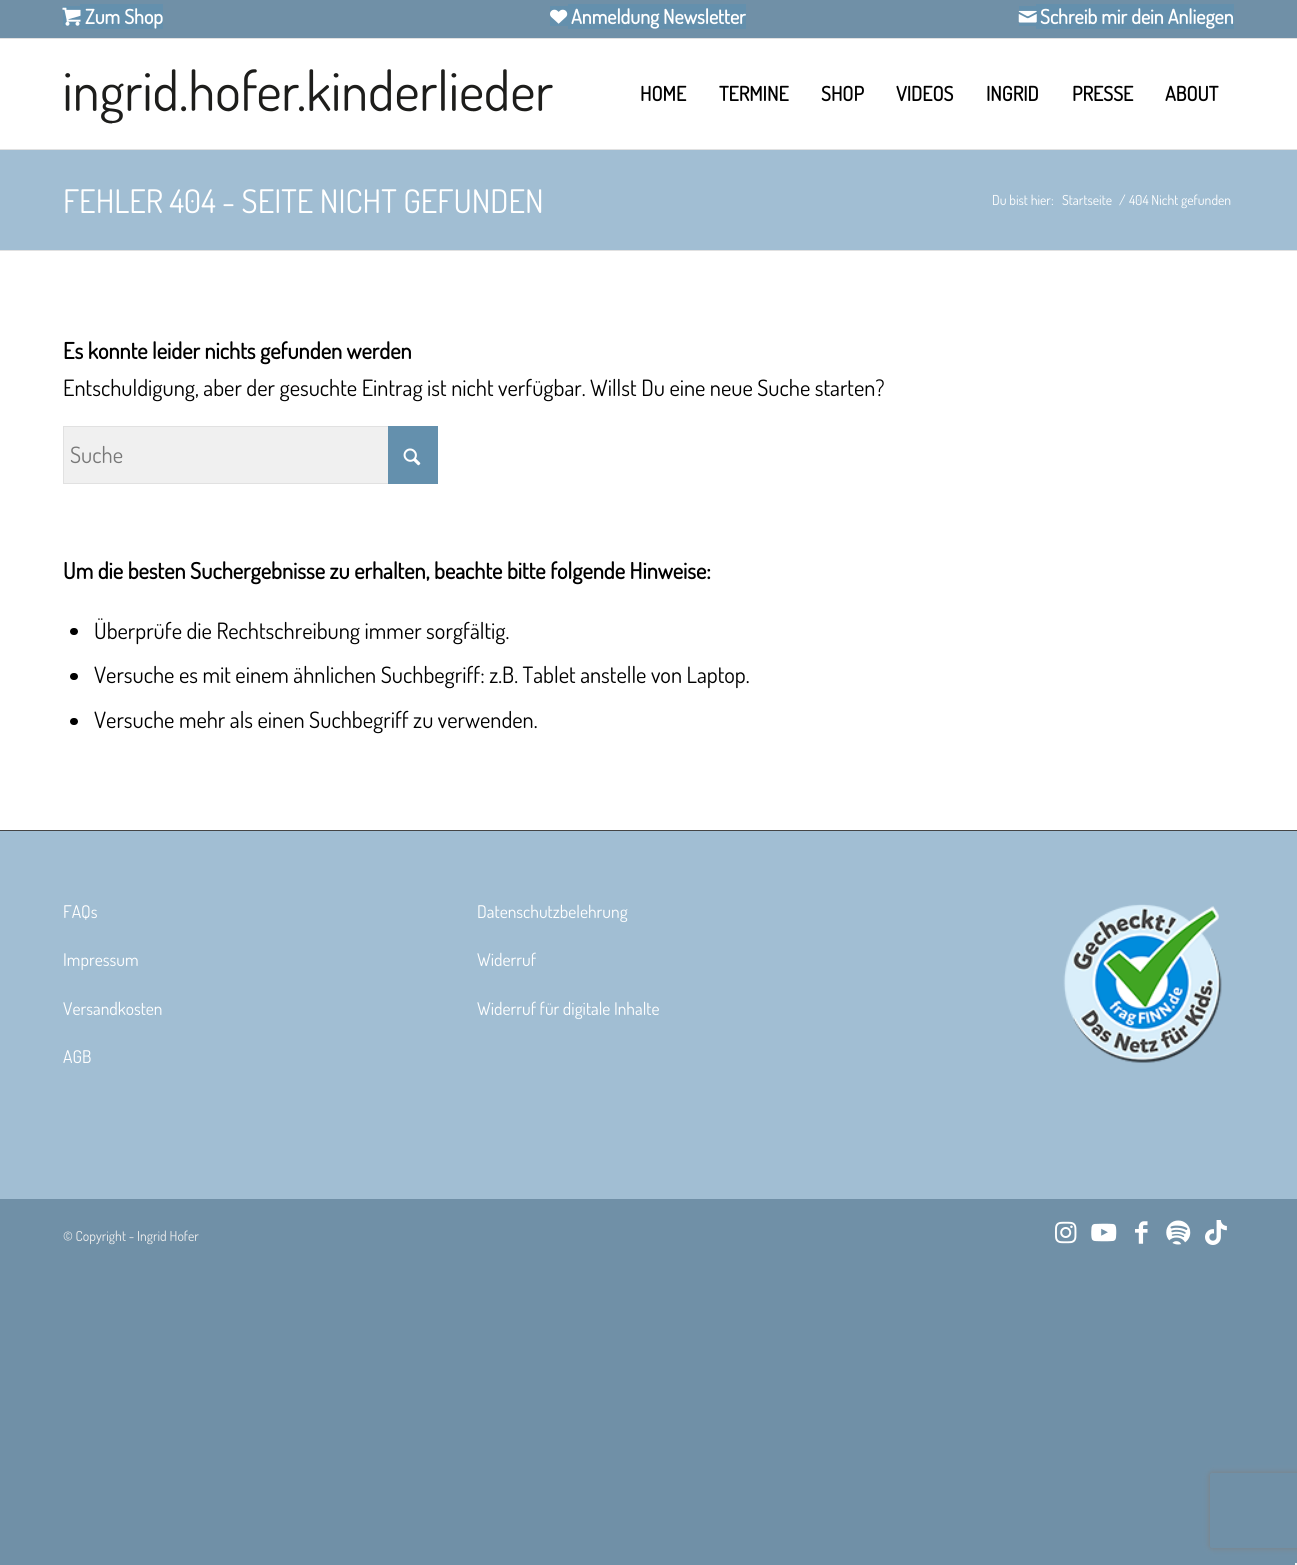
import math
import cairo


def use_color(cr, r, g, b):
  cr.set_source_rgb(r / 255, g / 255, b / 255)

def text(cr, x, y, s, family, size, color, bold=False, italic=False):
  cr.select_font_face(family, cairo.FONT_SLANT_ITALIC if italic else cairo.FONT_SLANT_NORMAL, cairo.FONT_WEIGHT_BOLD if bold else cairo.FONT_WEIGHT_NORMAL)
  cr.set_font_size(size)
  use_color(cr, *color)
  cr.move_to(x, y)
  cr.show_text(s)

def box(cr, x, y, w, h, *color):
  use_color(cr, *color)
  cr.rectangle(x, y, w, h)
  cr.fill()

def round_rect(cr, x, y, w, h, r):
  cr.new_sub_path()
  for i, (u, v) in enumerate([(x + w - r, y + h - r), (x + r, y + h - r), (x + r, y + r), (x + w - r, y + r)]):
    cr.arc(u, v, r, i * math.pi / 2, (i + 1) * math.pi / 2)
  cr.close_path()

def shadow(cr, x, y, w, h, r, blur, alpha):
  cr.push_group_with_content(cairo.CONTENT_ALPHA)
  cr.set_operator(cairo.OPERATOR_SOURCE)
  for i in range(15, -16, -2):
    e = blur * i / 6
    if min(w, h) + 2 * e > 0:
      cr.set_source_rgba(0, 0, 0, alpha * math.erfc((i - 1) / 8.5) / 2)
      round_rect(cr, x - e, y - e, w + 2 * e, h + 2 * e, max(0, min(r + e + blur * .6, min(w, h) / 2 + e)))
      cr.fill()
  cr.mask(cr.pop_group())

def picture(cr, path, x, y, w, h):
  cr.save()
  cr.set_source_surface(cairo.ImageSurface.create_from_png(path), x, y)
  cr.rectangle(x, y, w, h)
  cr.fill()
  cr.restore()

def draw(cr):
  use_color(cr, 112, 144, 167)
  cr.paint()
  box(cr, 0, 251, 1297, 579, 255, 255, 255)
  box(cr, 0, 39, 1297, 110, 255, 255, 255)
  box(cr, 0, 38, 1297, 1, 225, 225, 225)
  box(cr, 63, 6, 17, 20, 100, 144, 173)
  box(cr, 80, 4, 83, 25, 100, 144, 173)
  picture(cr, "img_01.png", 62, 7, 19, 19)
  box(cr, 550, 6, 18, 20, 100, 144, 173)
  picture(cr, "img_02.png", 550, 9, 18, 15)
  box(cr, 568, 4, 178, 25, 100, 144, 173)
  box(cr, 1019, 6, 17, 20, 100, 144, 173)
  box(cr, 1036, 4, 198, 25, 100, 144, 173)
  picture(cr, "img_03.png", 1018, 10, 19, 13)
  box(cr, 0, 149, 1297, 1, 225, 225, 225)
  picture(cr, "img_04.png", 65, 69, 488, 55)
  box(cr, 0, 150, 1297, 100, 161, 190, 211)
  box(cr, 0, 250, 1297, 1, 225, 225, 225)
  box(cr, 64, 427, 324, 56, 240, 240, 240)
  cr.rectangle(63.5, 426.5, 374, 57)
  use_color(cr, 225, 225, 225)
  cr.set_line_width(1)
  cr.stroke()
  box(cr, 388, 426, 50, 58, 100, 144, 173)
  picture(cr, "img_05.png", 403, 448, 18, 18)
  use_color(cr, 0, 0, 0)
  round_rect(cr, 70, 628, 8, 7, 3.5)
  cr.fill()
  round_rect(cr, 70, 673, 8, 7, 3.5)
  cr.fill()
  round_rect(cr, 70, 718, 8, 7, 3.5)
  cr.fill()
  box(cr, 0, 831, 1297, 368, 161, 190, 211)
  box(cr, 0, 830, 1297, 1, 68, 68, 68)
  picture(cr, "img_06.png", 1063, 904, 159, 159)
  picture(cr, "img_07.png", 1055, 1221, 22, 23)
  picture(cr, "img_08.png", 1091, 1223, 26, 19)
  picture(cr, "img_09.png", 1135, 1221, 13, 23)
  picture(cr, "img_10.png", 1166, 1220, 25, 25)
  picture(cr, "img_11.png", 1205, 1220, 22, 25)
  cr.save()
  cr.set_fill_rule(cairo.FILL_RULE_EVEN_ODD)
  cr.new_path()
  cr.move_to(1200, 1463)
  cr.line_to(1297, 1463)
  cr.line_to(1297, 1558)
  cr.line_to(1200, 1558)
  cr.close_path()
  cr.move_to(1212.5, 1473)
  cr.line_to(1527.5, 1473)
  cr.curve_to(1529, 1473, 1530, 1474, 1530, 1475.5)
  cr.line_to(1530, 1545.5)
  cr.curve_to(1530, 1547, 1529, 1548, 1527.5, 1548)
  cr.line_to(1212.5, 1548)
  cr.curve_to(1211, 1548, 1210, 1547, 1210, 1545.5)
  cr.line_to(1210, 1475.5)
  cr.curve_to(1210, 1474, 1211, 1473, 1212.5, 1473)
  cr.close_path()
  cr.clip()
  use_color(cr, 128, 128, 128)
  shadow(cr, 1210, 1473, 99, 75, 2.5, 3, 1)
  cr.restore()
  box(cr, 1295, 1563, 2, 2, 245, 245, 245)
  text(cr, 85, 24, "Zum Shop", "Dosis", 20, (255, 255, 255), bold=True)
  text(cr, 571, 24, "Anmeldung Newsletter", "Dosis", 20, (255, 255, 255), bold=True)
  text(cr, 1040, 24, "Schreib mir dein Anliegen", "Dosis", 20, (255, 255, 255), bold=True)
  text(cr, 640, 101, "HOME", "Dosis", 20, (0, 0, 0), bold=True)
  text(cr, 719, 101, "TERMINE", "Dosis", 20, (0, 0, 0), bold=True)
  text(cr, 821, 101, "SHOP", "Dosis", 20, (0, 0, 0), bold=True)
  text(cr, 896, 101, "VIDEOS", "Dosis", 20, (0, 0, 0), bold=True)
  text(cr, 986, 101, "INGRID", "Dosis", 20, (0, 0, 0), bold=True)
  text(cr, 1072, 101, "PRESSE", "Dosis", 20, (0, 0, 0), bold=True)
  text(cr, 1165, 101, "ABOUT", "Dosis", 20, (0, 0, 0), bold=True)
  text(cr, 63, 213, "FEHLER 404 - SEITE NICHT GEFUNDEN", "Dosis", 32.5, (255, 255, 255))
  text(cr, 992, 205, "Du bist hier:", "Dosis", 13.75, (255, 255, 255))
  text(cr, 1062, 205, "Startseite", "Dosis", 13.75, (255, 255, 255))
  text(cr, 1119, 205, "/", "Dosis", 13.75, (255, 255, 255))
  text(cr, 1129, 205, "404 Nicht gefunden", "Dosis", 13.75, (255, 255, 255))
  text(cr, 63, 359, "Es konnte leider nichts gefunden werden", "Dosis", 22.5, (0, 0, 0), bold=True)
  text(cr, 63, 396, "Entschuldigung, aber der gesuchte Eintrag ist nicht verfügbar. Willst Du eine neue Suche starten?", "Dosis", 22.5, (0, 0, 0))
  text(cr, 70, 463, "Suche", "Dosis", 22.5, (120, 120, 120))
  text(cr, 63, 579, "Um die besten Suchergebnisse zu erhalten, beachte bitte folgende Hinweise:", "Dosis", 22.5, (0, 0, 0), bold=True)
  text(cr, 94, 639, "Überprüfe die Rechtschreibung immer sorgfältig.", "Dosis", 22.5, (0, 0, 0))
  text(cr, 94, 683, "Versuche es mit einem ähnlichen Suchbegriff: z.B. Tablet anstelle von Laptop.", "Dosis", 22.5, (0, 0, 0))
  text(cr, 94, 728, "Versuche mehr als einen Suchbegriff zu verwenden.", "Dosis", 22.5, (0, 0, 0))
  text(cr, 63, 918, "FAQs", "Dosis", 17.5, (255, 255, 255))
  text(cr, 63, 966, "Impressum", "Dosis", 17.5, (255, 255, 255))
  text(cr, 63, 1015, "Versandkosten", "Dosis", 17.5, (255, 255, 255))
  text(cr, 63, 1063, "AGB", "Dosis", 17.5, (255, 255, 255))
  text(cr, 477, 918, "Datenschutzbelehrung", "Dosis", 17.5, (255, 255, 255))
  text(cr, 477, 966, "Widerruf", "Dosis", 17.5, (255, 255, 255))
  text(cr, 477, 1015, "Widerruf für digitale Inhalte", "Dosis", 17.5, (255, 255, 255))
  text(cr, 63, 1241, "© Copyright - Ingrid Hofer", "Dosis", 13.75, (238, 238, 238))


surface = cairo.ImageSurface(cairo.FORMAT_RGB24, 1297, 1565)
cr = cairo.Context(surface)
options = cairo.FontOptions()
options.set_hint_metrics(cairo.HINT_METRICS_OFF)
options.set_hint_style(cairo.HINT_STYLE_NONE)
cr.set_font_options(options)
cr.set_miter_limit(4)
draw(cr)
surface.write_to_png("out.png")
